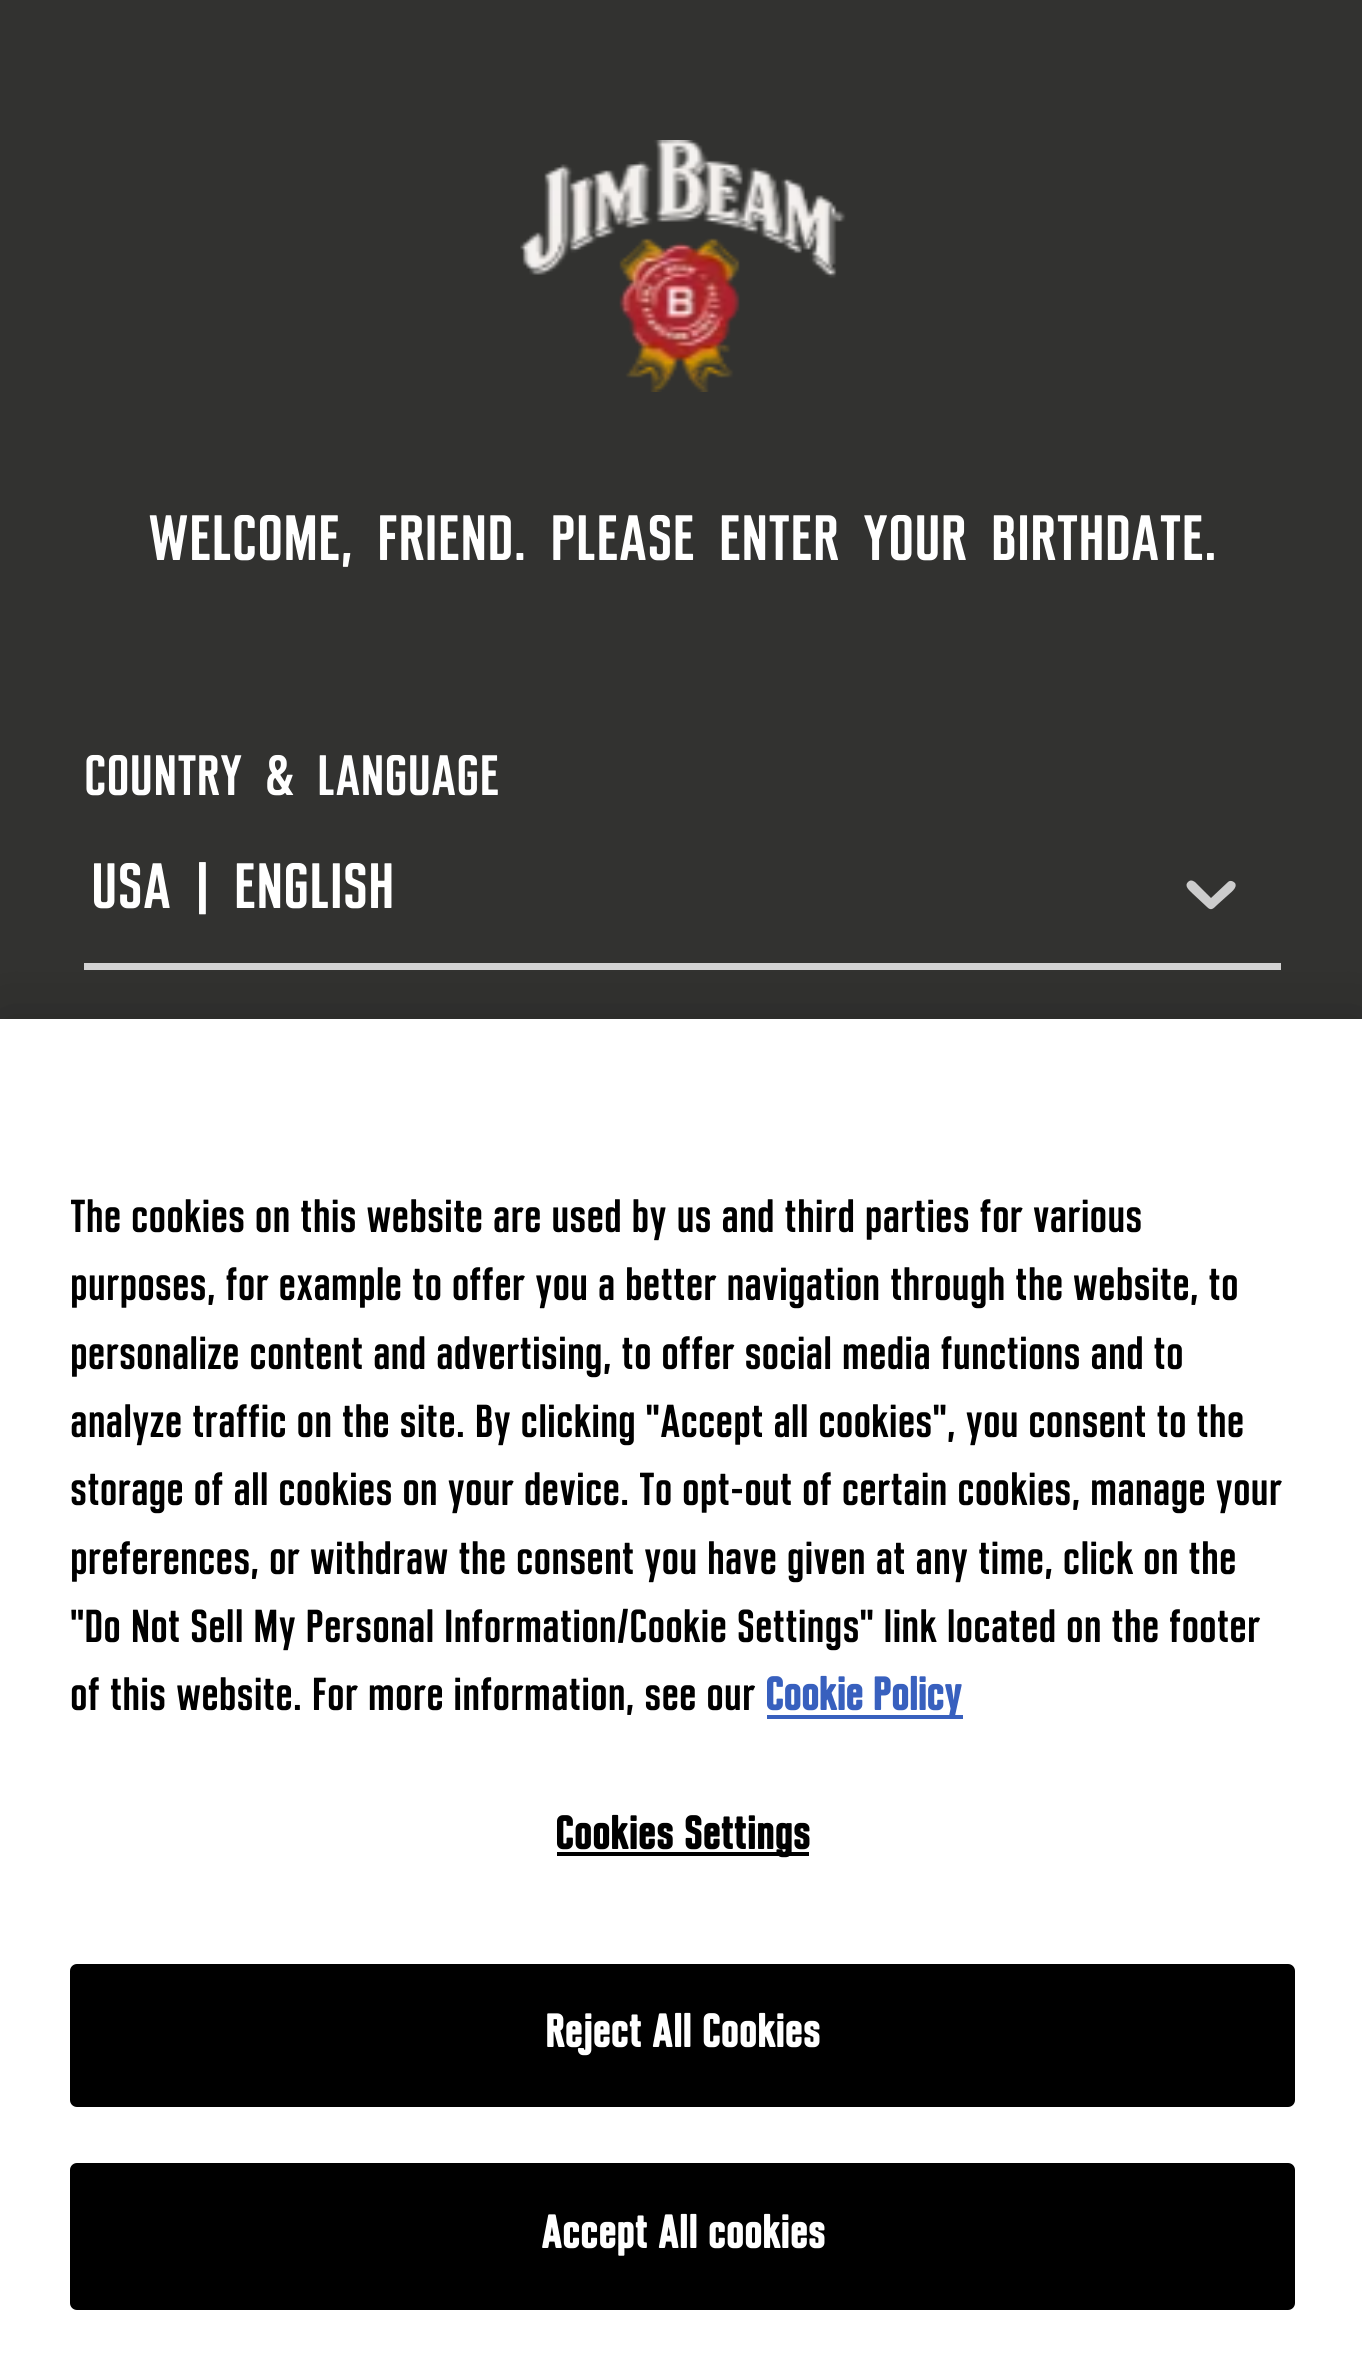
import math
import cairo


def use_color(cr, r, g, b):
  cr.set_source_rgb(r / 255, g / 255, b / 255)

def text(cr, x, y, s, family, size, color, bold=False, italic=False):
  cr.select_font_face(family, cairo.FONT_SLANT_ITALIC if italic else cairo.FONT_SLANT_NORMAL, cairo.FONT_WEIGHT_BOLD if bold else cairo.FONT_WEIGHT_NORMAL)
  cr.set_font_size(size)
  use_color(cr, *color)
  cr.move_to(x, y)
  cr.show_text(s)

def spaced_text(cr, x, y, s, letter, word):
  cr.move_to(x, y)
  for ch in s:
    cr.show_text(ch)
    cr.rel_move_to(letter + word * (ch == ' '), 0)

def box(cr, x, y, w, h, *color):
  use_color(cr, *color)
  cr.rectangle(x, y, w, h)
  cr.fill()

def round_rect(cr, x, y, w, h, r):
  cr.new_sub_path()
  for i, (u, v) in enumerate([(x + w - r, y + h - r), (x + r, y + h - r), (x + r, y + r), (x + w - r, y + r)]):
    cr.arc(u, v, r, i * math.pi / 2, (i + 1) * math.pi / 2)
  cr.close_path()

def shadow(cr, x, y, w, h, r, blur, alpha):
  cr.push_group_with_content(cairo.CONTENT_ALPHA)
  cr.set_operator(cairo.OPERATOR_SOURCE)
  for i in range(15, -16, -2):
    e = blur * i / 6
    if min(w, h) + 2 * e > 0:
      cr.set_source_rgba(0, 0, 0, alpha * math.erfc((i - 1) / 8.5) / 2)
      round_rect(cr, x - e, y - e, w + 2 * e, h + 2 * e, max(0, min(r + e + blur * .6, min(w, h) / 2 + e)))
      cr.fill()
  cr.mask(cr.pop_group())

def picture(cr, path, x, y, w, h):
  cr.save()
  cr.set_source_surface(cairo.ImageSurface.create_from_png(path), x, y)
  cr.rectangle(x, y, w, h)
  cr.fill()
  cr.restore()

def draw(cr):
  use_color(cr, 50, 50, 48)
  cr.paint()
  picture(cr, "img_01.png", 520, 140, 326, 252)
  box(cr, 84, 963, 1197, 7, 213, 213, 213)
  use_color(cr, 204, 204, 204)
  cr.new_path()
  cr.move_to(1188, 882)
  cr.curve_to(1190, 880, 1192, 880, 1195, 882)
  cr.line_to(1211, 898)
  cr.line_to(1228, 882)
  cr.curve_to(1230, 880, 1233, 881, 1235, 883)
  cr.curve_to(1238, 888, 1230, 893, 1227, 896)
  cr.line_to(1217, 905)
  cr.curve_to(1213, 909, 1211, 911, 1207, 907)
  cr.line_to(1192, 893)
  cr.curve_to(1189, 890, 1184, 886, 1188, 882)
  cr.close_path()
  cr.fill()
  use_color(cr, 0, 0, 0)
  shadow(cr, 0, 1019, 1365, 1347, 0, 31.5, 0.2)
  box(cr, 0, 1019, 1362, 1346, 255, 255, 255)
  box(cr, 767, 1715, 196, 4, 56, 96, 190)
  box(cr, 557, 1852, 252, 4, 0, 0, 0)
  round_rect(cr, 72, 1966, 1221, 139, 5)
  cr.fill_preserve()
  cr.set_line_width(4)
  cr.stroke()
  round_rect(cr, 72, 2165, 1221, 143, 5)
  cr.fill_preserve()
  cr.stroke()
  cr.select_font_face("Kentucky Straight")
  cr.set_font_size(63)
  use_color(cr, 255, 255, 255)
  spaced_text(cr, 148, 560, "WELCOME, FRIEND. PLEASE ENTER YOUR BIRTHDATE.", 0, 10.5)
  cr.set_font_size(56)
  spaced_text(cr, 84, 795, "COUNTRY & LANGUAGE", 0, 10.5)
  cr.set_font_size(63)
  spaced_text(cr, 91, 908, "USA | ENGLISH", 0, 10.5)
  text(cr, 70, 1232, "The cookies on this website are used by us and third parties for various", "Kentucky Straight", 45.5, (0, 0, 0))
  text(cr, 70, 1300, "purposes, for example to offer you a better navigation through the website, to", "Kentucky Straight", 45.5, (0, 0, 0))
  text(cr, 70, 1369, "personalize content and advertising, to offer social media functions and to", "Kentucky Straight", 45.5, (0, 0, 0))
  text(cr, 70, 1437, "analyze traffic on the site. By clicking \"Accept all cookies\", you consent to the", "Kentucky Straight", 45.5, (0, 0, 0))
  text(cr, 70, 1505, "storage of all cookies on your device. To opt-out of certain cookies, manage your", "Kentucky Straight", 45.5, (0, 0, 0))
  text(cr, 70, 1574, "preferences, or withdraw the consent you have given at any time, click on the", "Kentucky Straight", 45.5, (0, 0, 0))
  text(cr, 70, 1642, "\"Do Not Sell My Personal Information/Cookie Settings\" link located on the footer", "Kentucky Straight", 45.5, (0, 0, 0))
  text(cr, 70, 1710, "of this website. For more information, see our", "Kentucky Straight", 45.5, (0, 0, 0))
  text(cr, 765, 1710, "Cookie Policy", "Kentucky Straight", 45.5, (56, 96, 190), bold=True)
  use_color(cr, 0, 0, 0)
  spaced_text(cr, 555, 1849, "Cookies Settings", 0.5, 0)
  use_color(cr, 255, 255, 255)
  spaced_text(cr, 545, 2047, "Reject All Cookies", 0.5, 0)
  spaced_text(cr, 541, 2248, "Accept All cookies", 0.5, 0)


surface = cairo.ImageSurface(cairo.FORMAT_RGB24, 1362, 2365)
cr = cairo.Context(surface)
options = cairo.FontOptions()
options.set_hint_metrics(cairo.HINT_METRICS_OFF)
options.set_hint_style(cairo.HINT_STYLE_NONE)
cr.set_font_options(options)
cr.set_miter_limit(4)
draw(cr)
surface.write_to_png("out.png")
